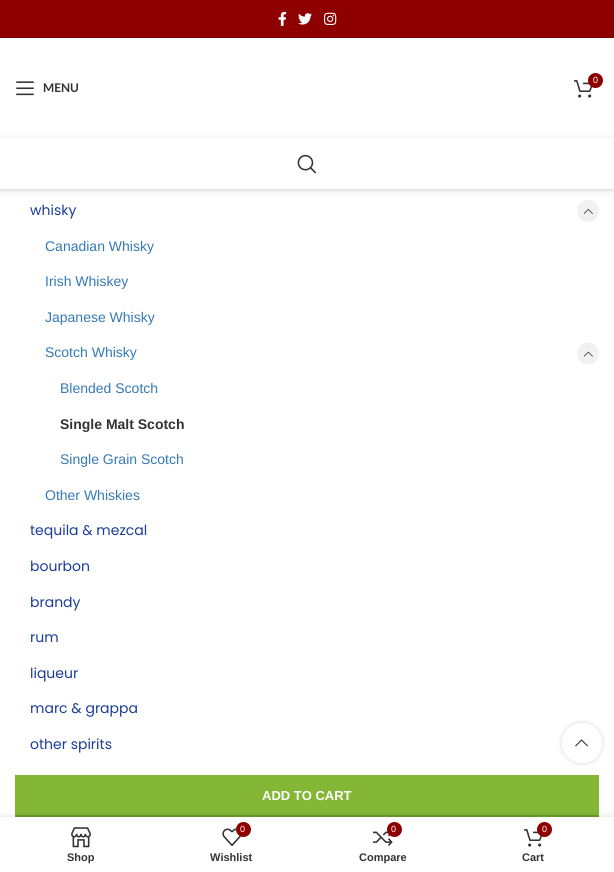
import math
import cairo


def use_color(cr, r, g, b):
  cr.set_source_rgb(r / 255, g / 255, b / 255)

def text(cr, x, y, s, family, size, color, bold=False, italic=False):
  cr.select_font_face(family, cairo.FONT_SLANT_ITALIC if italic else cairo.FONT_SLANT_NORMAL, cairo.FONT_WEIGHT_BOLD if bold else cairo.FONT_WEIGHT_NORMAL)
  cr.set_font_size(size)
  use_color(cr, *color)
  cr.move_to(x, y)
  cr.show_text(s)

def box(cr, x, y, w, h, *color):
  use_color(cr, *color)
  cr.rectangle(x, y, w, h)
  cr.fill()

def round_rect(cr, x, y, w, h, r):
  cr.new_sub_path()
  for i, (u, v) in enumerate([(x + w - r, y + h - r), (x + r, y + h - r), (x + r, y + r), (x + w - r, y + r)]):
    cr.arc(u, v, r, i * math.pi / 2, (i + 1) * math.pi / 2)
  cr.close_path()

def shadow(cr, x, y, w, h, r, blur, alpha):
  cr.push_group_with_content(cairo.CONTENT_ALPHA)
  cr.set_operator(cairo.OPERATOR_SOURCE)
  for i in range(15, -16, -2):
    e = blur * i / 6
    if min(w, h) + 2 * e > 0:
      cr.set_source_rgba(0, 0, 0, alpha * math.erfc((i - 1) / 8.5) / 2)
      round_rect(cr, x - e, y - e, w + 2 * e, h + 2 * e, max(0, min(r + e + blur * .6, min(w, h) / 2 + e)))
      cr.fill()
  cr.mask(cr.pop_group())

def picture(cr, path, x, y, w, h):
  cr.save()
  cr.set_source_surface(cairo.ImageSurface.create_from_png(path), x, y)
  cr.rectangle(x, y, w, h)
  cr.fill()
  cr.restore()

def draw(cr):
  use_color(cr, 255, 255, 255)
  cr.paint()
  use_color(cr, 0, 0, 0)
  shadow(cr, 0, 1, 614, 189, 0, 1.5, 0.1)
  box(cr, 0, 0, 614, 38, 142, 0, 0)
  picture(cr, "img_01.png", 278, 11, 9, 15)
  picture(cr, "img_02.png", 298, 13, 14, 12)
  picture(cr, "img_03.png", 324, 12, 13, 13)
  use_color(cr, 0, 0, 0)
  shadow(cr, 0, 39, 614, 100, 0, 4, 0.1)
  box(cr, 0, 38, 614, 100, 255, 255, 255)
  picture(cr, "img_04.png", 574, 80, 19, 18)
  use_color(cr, 142, 0, 0)
  cr.arc(595.5, 80.5, 7.5, 0, 2 * math.pi)
  cr.fill()
  picture(cr, "img_05.png", 16, 81, 18, 15)
  use_color(cr, 241, 241, 241)
  cr.new_path()
  cr.move_to(588, 222)
  cr.curve_to(573.5, 222, 573.5, 200, 588, 200)
  cr.curve_to(602.5, 200, 602.5, 222, 588, 222)
  cr.close_path()
  cr.fill()
  use_color(cr, 0, 0, 0)
  shadow(cr, 0, 139, 614, 51, 0, 4, 0.1)
  box(cr, 0, 138, 614, 51, 255, 255, 255)
  picture(cr, "img_06.png", 297, 154, 20, 20)
  picture(cr, "img_07.png", 583, 208, 10, 6)
  use_color(cr, 241, 241, 241)
  cr.new_path()
  cr.move_to(588, 364.5)
  cr.curve_to(573.5, 364.5, 573.5, 342.5, 588, 342.5)
  cr.curve_to(602.5, 342.5, 602.5, 364.5, 588, 364.5)
  cr.close_path()
  cr.fill()
  picture(cr, "img_08.png", 583, 351, 10, 6)
  cr.save()
  cr.set_fill_rule(cairo.FILL_RULE_EVEN_ODD)
  cr.new_path()
  cr.move_to(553, 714)
  cr.line_to(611, 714)
  cr.line_to(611, 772)
  cr.line_to(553, 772)
  cr.close_path()
  cr.move_to(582, 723)
  cr.curve_to(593, 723, 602, 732, 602, 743)
  cr.curve_to(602, 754, 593, 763, 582, 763)
  cr.curve_to(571, 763, 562, 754, 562, 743)
  cr.curve_to(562, 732, 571, 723, 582, 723)
  cr.close_path()
  cr.clip()
  use_color(cr, 0, 0, 0)
  shadow(cr, 562, 723, 40, 40, 20, 2.5, 0.17)
  cr.restore()
  cr.set_source_rgba(1, 1, 1, 0.9)
  cr.arc(582, 743, 20, 0, 2 * math.pi)
  cr.fill()
  picture(cr, "img_09.png", 575, 739, 13, 8)
  box(cr, 15, 775, 584, 40, 131, 183, 53)
  box(cr, 15, 815, 584, 2, 111, 156, 45)
  use_color(cr, 0, 0, 0)
  shadow(cr, 0, 817, 614, 55, 0, 4.5, 0.12)
  box(cr, 0, 817, 614, 55, 255, 255, 255)
  picture(cr, "img_10.png", 71, 827, 20, 21)
  picture(cr, "img_11.png", 222, 828, 20, 18)
  use_color(cr, 142, 0, 0)
  cr.arc(243.5, 829.5, 7.5, 0, 2 * math.pi)
  cr.fill()
  picture(cr, "img_12.png", 373, 831, 20, 15)
  cr.arc(394.5, 829.5, 7.5, 0, 2 * math.pi)
  cr.fill()
  picture(cr, "img_04.png", 524, 829, 19, 18)
  cr.arc(544.5, 829.5, 7.5, 0, 2 * math.pi)
  cr.fill()
  text(cr, 593, 83, "0", "Liberation Sans", 9, (255, 255, 255))
  text(cr, 43, 92, "MENU", "Lato", 12, (51, 51, 51), bold=True)
  text(cr, 30, 215, "whisky", "Poppins", 14, (26, 61, 153))
  text(cr, 45, 251, "Canadian Whisky", "Liberation Sans", 14, (51, 122, 183))
  text(cr, 45, 286, "Irish Whiskey", "Liberation Sans", 14, (51, 122, 183))
  text(cr, 45, 322, "Japanese Whisky", "Liberation Sans", 14, (51, 122, 183))
  text(cr, 45, 357, "Scotch Whisky", "Liberation Sans", 14, (51, 122, 183))
  text(cr, 60, 393, "Blended Scotch", "Liberation Sans", 14, (51, 122, 183))
  text(cr, 60, 429, "Single Malt Scotch", "Liberation Sans", 14, (51, 51, 51), bold=True)
  text(cr, 60, 464, "Single Grain Scotch", "Liberation Sans", 14, (51, 122, 183))
  text(cr, 45, 500, "Other Whiskies", "Liberation Sans", 14, (51, 122, 183))
  text(cr, 30, 535, "tequila & mezcal", "Poppins", 14, (26, 61, 153))
  text(cr, 30, 571, "bourbon", "Poppins", 14, (26, 61, 153))
  text(cr, 30, 607, "brandy", "Poppins", 14, (26, 61, 153))
  text(cr, 30, 642, "rum", "Poppins", 14, (26, 61, 153))
  text(cr, 30, 678, "liqueur", "Poppins", 14, (26, 61, 153))
  text(cr, 30, 713, "marc & grappa", "Poppins", 14, (26, 61, 153))
  text(cr, 30, 749, "other spirits", "Poppins", 14, (26, 61, 153))
  text(cr, 262, 800, "ADD TO CART", "Liberation Sans", 13, (255, 255, 255), bold=True)
  text(cr, 67, 861, "Shop", "Liberation Sans", 11, (51, 51, 51), bold=True)
  text(cr, 240, 832, "0", "Liberation Sans", 9, (255, 255, 255))
  text(cr, 210, 861, "Wishlist", "Liberation Sans", 11, (51, 51, 51), bold=True)
  text(cr, 391, 832, "0", "Liberation Sans", 9, (255, 255, 255))
  text(cr, 359, 861, "Compare", "Liberation Sans", 11, (51, 51, 51), bold=True)
  text(cr, 542, 832, "0", "Liberation Sans", 9, (255, 255, 255))
  text(cr, 522, 861, "Cart", "Liberation Sans", 11, (51, 51, 51), bold=True)


surface = cairo.ImageSurface(cairo.FORMAT_RGB24, 614, 872)
cr = cairo.Context(surface)
options = cairo.FontOptions()
options.set_hint_metrics(cairo.HINT_METRICS_OFF)
options.set_hint_style(cairo.HINT_STYLE_NONE)
cr.set_font_options(options)
cr.set_miter_limit(4)
draw(cr)
surface.write_to_png("out.png")
